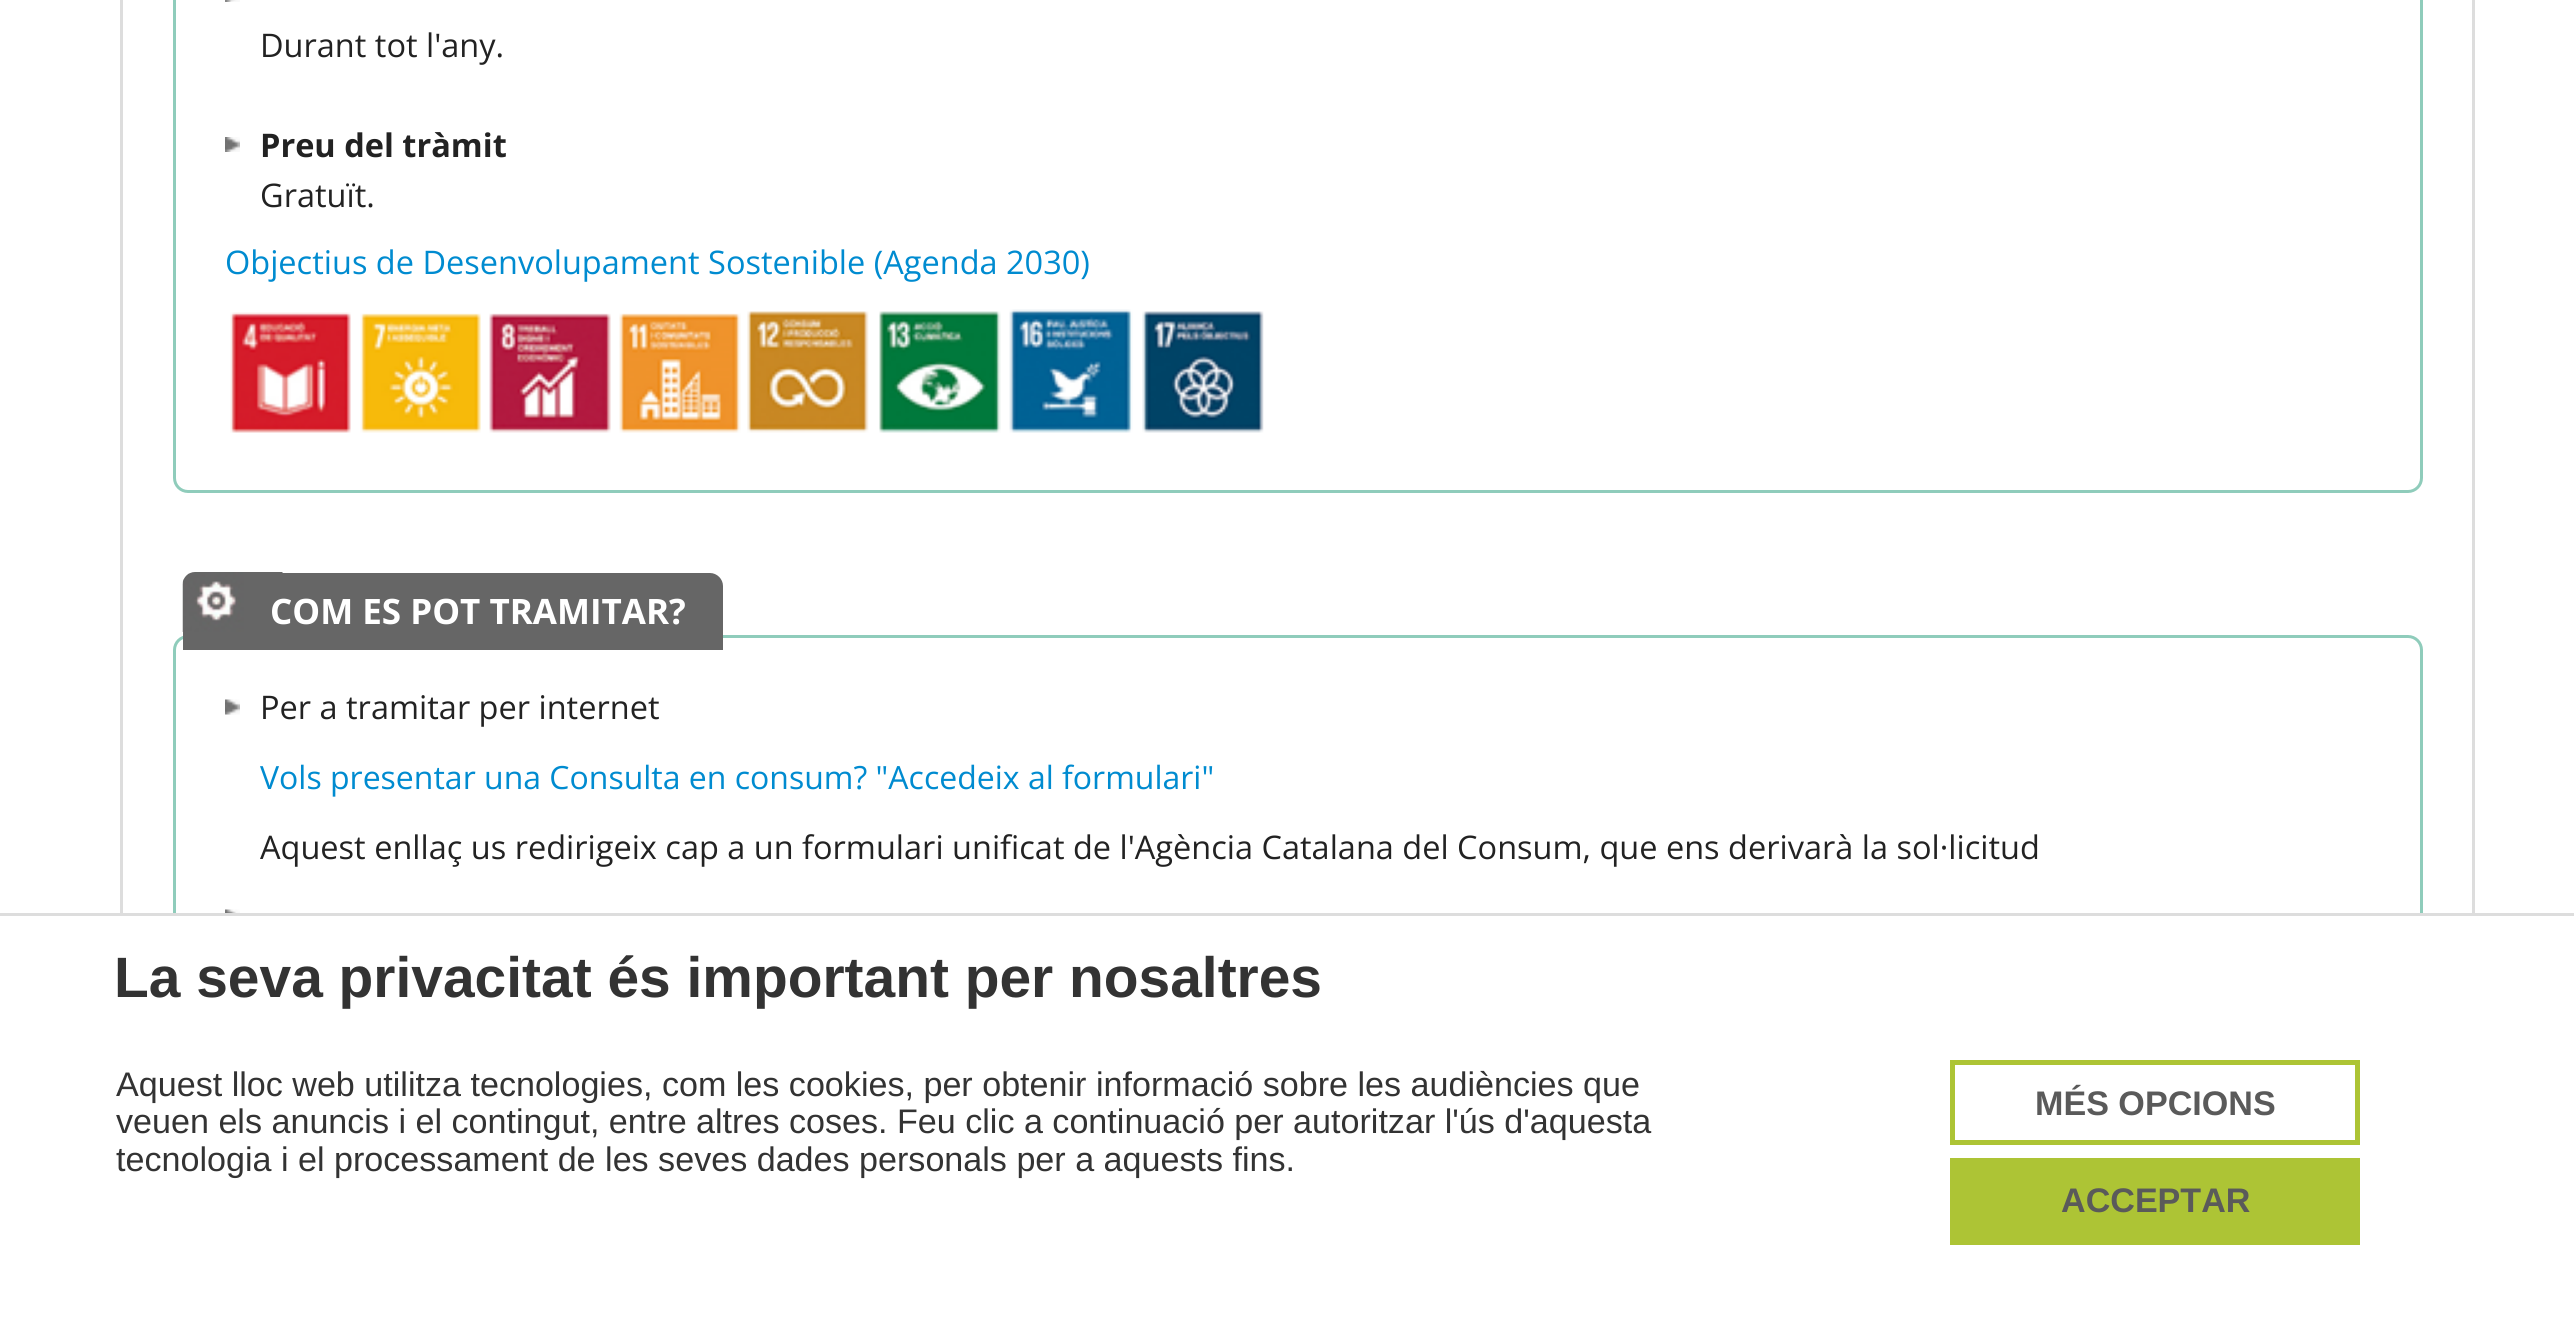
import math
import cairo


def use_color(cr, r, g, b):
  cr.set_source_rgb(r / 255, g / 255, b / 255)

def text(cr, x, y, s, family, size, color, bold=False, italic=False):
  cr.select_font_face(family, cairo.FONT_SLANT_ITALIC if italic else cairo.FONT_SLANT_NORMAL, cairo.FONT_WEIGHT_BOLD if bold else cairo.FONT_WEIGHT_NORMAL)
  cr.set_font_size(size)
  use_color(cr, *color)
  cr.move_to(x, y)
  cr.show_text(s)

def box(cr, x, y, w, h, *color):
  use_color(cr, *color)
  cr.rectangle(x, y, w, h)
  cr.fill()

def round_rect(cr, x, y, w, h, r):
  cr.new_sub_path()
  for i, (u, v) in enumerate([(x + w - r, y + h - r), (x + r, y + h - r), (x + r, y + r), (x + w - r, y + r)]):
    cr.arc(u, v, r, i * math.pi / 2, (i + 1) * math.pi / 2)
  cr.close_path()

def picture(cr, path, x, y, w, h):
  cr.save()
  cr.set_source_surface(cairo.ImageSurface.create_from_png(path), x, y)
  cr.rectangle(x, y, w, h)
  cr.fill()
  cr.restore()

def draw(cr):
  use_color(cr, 255, 255, 255)
  cr.paint()
  cr.rectangle(121.5, -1.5, 2352, 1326)
  use_color(cr, 221, 221, 221)
  cr.set_line_width(3)
  cr.stroke()
  round_rect(cr, 174.5, -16.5, 2247, 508, 13.5)
  use_color(cr, 143, 204, 187)
  cr.stroke()
  picture(cr, "img_01.png", 225, 0, 15, 2)
  picture(cr, "img_02.png", 225, 137, 15, 15)
  picture(cr, "img_03.png", 230, 312, 121, 121)
  picture(cr, "img_04.png", 360, 313, 121, 120)
  picture(cr, "img_05.png", 489, 313, 122, 120)
  picture(cr, "img_06.png", 619, 313, 122, 120)
  picture(cr, "img_07.png", 747, 311, 122, 122)
  picture(cr, "img_08.png", 879, 311, 122, 122)
  picture(cr, "img_09.png", 1009, 309, 124, 124)
  picture(cr, "img_10.png", 1142, 311, 122, 122)
  round_rect(cr, 174.5, 636.5, 2247, 422, 13.5)
  cr.stroke()
  use_color(cr, 102, 102, 102)
  cr.new_path()
  cr.move_to(196, 573)
  cr.line_to(710, 573)
  cr.curve_to(717, 573, 723, 579, 723, 586)
  cr.line_to(723, 650)
  cr.line_to(183, 650)
  cr.line_to(183, 586)
  cr.curve_to(183, 579, 189, 573, 196, 573)
  cr.close_path()
  cr.fill()
  picture(cr, "img_11.png", 182, 572, 101, 60)
  picture(cr, "img_12.png", 225, 699, 15, 16)
  picture(cr, "img_13.png", 225, 909, 15, 4)
  box(cr, 120, 916, 2355, 407, 255, 255, 255)
  box(cr, 0, 913, 2574, 3, 221, 221, 221)
  cr.rectangle(1952.5, 1062.5, 405, 80)
  use_color(cr, 173, 196, 53)
  cr.set_line_width(5)
  cr.stroke()
  box(cr, 1950, 1158, 410, 87, 173, 196, 53)
  text(cr, 260, 57, "Durant tot l'any.", "Open Sans", 32.5, (34, 34, 34))
  text(cr, 260, 157, "Preu del tràmit", "Open Sans", 32.5, (34, 34, 34), bold=True)
  text(cr, 260, 207, "Gratuït.", "Open Sans", 32.5, (34, 34, 34))
  text(cr, 225, 274, "Objectius de Desenvolupament Sostenible (Agenda 2030)", "Open Sans", 32.5, (0, 139, 208))
  text(cr, 270, 624, "COM ES POT TRAMITAR?", "Open Sans", 35, (255, 255, 255), bold=True)
  text(cr, 260, 719, "Per a tramitar per internet", "Open Sans", 32.5, (34, 34, 34))
  text(cr, 260, 789, "Vols presentar una Consulta en consum? \"Accedeix al formulari\"", "Open Sans", 32, (0, 139, 208))
  text(cr, 260, 859, "Aquest enllaç us redirigeix cap a un formulari unificat de l'Agència Catalana del Consum, que ens derivarà la sol·licitud", "Open Sans", 32.5, (34, 34, 34))
  text(cr, 114, 997, "La seva privacitat és important per nosaltres", "Liberation Sans", 56.9, (51, 51, 51), bold=True)
  text(cr, 116, 1096, "Aquest lloc web utilitza tecnologies, com les cookies, per obtenir informació sobre les audiències que", "Liberation Sans", 34.1, (51, 51, 51))
  text(cr, 116, 1133, "veuen els anuncis i el contingut, entre altres coses. Feu clic a continuació per autoritzar l'ús d'aquesta", "Liberation Sans", 34.1, (51, 51, 51))
  text(cr, 116, 1171, "tecnologia i el processament de les seves dades personals per a aquests fins.", "Liberation Sans", 34.1, (51, 51, 51))
  text(cr, 2035, 1115, "MÉS OPCIONS", "Liberation Sans", 34.1, (90, 90, 90), bold=True)
  text(cr, 2061, 1212, "ACCEPTAR", "Liberation Sans", 34.1, (90, 90, 90), bold=True)


surface = cairo.ImageSurface(cairo.FORMAT_RGB24, 2574, 1323)
cr = cairo.Context(surface)
options = cairo.FontOptions()
options.set_hint_metrics(cairo.HINT_METRICS_OFF)
options.set_hint_style(cairo.HINT_STYLE_NONE)
cr.set_font_options(options)
cr.set_miter_limit(4)
draw(cr)
surface.write_to_png("out.png")
